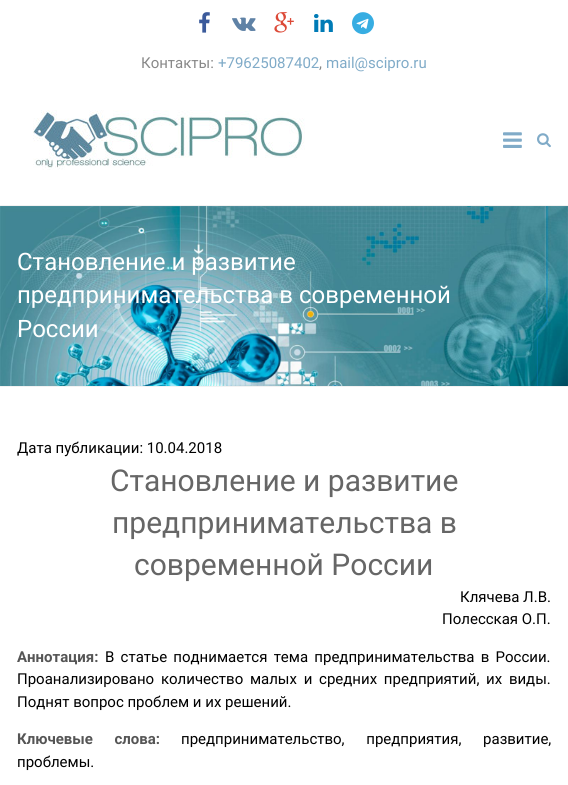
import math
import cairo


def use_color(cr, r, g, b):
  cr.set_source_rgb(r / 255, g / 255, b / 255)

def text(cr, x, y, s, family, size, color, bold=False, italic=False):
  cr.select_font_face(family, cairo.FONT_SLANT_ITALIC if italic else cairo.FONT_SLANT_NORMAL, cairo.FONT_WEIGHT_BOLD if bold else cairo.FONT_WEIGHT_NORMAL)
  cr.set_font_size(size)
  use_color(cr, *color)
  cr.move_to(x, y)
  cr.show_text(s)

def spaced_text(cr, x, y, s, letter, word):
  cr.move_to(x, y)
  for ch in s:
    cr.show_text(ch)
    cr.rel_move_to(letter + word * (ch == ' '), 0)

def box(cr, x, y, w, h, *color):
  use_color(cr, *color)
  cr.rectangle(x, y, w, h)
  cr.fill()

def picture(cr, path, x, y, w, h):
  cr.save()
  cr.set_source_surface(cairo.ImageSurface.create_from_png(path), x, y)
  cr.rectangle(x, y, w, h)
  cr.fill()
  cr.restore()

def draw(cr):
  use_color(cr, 255, 255, 255)
  cr.paint()
  box(cr, 0, 205, 568, 1, 242, 242, 242)
  picture(cr, "img_01.png", 199, 12, 11, 21)
  picture(cr, "img_02.png", 232, 17, 24, 14)
  picture(cr, "img_03.png", 274, 12, 20, 21)
  picture(cr, "img_04.png", 314, 14, 19, 18)
  picture(cr, "img_05.png", 352, 12, 22, 23)
  picture(cr, "img_06.png", 33, 110, 272, 60)
  picture(cr, "img_07.png", 503, 132, 19, 16)
  picture(cr, "img_08.png", 537, 133, 14, 15)
  picture(cr, "img_09.png", 0, 206, 568, 180)
  box(cr, 0, 386, 568, 1, 242, 242, 242)
  text(cr, 141, 68, "Контакты:", "Roboto", 15, (136, 136, 136))
  text(cr, 218, 68, "+79625087402", "Roboto", 15, (128, 171, 200))
  text(cr, 319, 68, ",", "Roboto", 15, (136, 136, 136))
  text(cr, 326, 68, "mail@scipro.ru", "Roboto", 15, (128, 171, 200))
  text(cr, 17, 270, "Становление и развитие", "Roboto", 24, (255, 255, 255))
  text(cr, 17, 303, "предпринимательства в современной", "Roboto", 24, (255, 255, 255))
  text(cr, 17, 337, "России", "Roboto", 24, (255, 255, 255))
  text(cr, 17, 453, "Дата публикации: 10.04.2018", "Roboto", 15, (0, 0, 0))
  text(cr, 110, 491, "Становление и развитие", "Roboto", 30, (102, 102, 102))
  text(cr, 112, 533, "предпринимательства в", "Roboto", 30, (102, 102, 102))
  text(cr, 134, 575, "современной России", "Roboto", 30, (102, 102, 102))
  text(cr, 460, 602, "Клячева Л.В.", "Roboto", 15, (0, 0, 0))
  text(cr, 442, 624, "Полесская О.П.", "Roboto", 15, (0, 0, 0))
  text(cr, 17, 662, "Аннотация:", "Roboto", 15, (85, 85, 85), bold=True)
  cr.select_font_face("Roboto")
  use_color(cr, 0, 0, 0)
  spaced_text(cr, 105, 662, "В статье поднимается тема предпринимательства в России.", 0, 2.5)
  spaced_text(cr, 17, 684, "Проанализировано количество малых и средних предприятий, их виды.", 0, 3)
  text(cr, 17, 707, "Поднят вопрос проблем и их решений.", "Roboto", 15, (0, 0, 0))
  cr.select_font_face("Roboto", cairo.FONT_SLANT_NORMAL, cairo.FONT_WEIGHT_BOLD)
  use_color(cr, 85, 85, 85)
  spaced_text(cr, 17, 744, "Ключевые слова:", 0, 18)
  cr.select_font_face("Roboto")
  use_color(cr, 0, 0, 0)
  spaced_text(cr, 181, 744, "предпринимательство, предприятия, развитие,", 0, 18)
  text(cr, 17, 767, "проблемы.", "Roboto", 15, (0, 0, 0))


surface = cairo.ImageSurface(cairo.FORMAT_RGB24, 568, 785)
cr = cairo.Context(surface)
options = cairo.FontOptions()
options.set_hint_metrics(cairo.HINT_METRICS_OFF)
options.set_hint_style(cairo.HINT_STYLE_NONE)
cr.set_font_options(options)
cr.set_miter_limit(4)
draw(cr)
surface.write_to_png("out.png")
